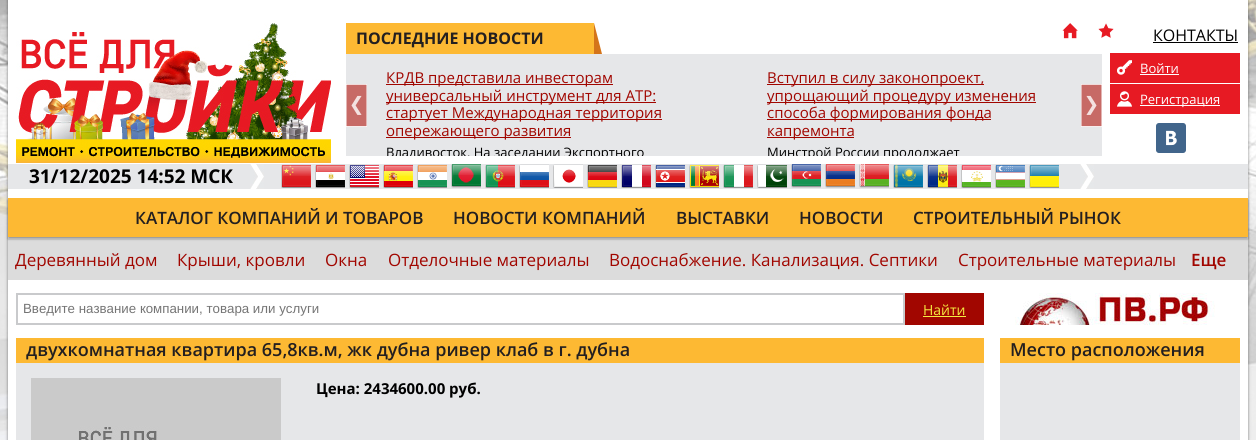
import math
import cairo


def use_color(cr, r, g, b):
  cr.set_source_rgb(r / 255, g / 255, b / 255)

def text(cr, x, y, s, family, size, color, bold=False, italic=False):
  cr.select_font_face(family, cairo.FONT_SLANT_ITALIC if italic else cairo.FONT_SLANT_NORMAL, cairo.FONT_WEIGHT_BOLD if bold else cairo.FONT_WEIGHT_NORMAL)
  cr.set_font_size(size)
  use_color(cr, *color)
  cr.move_to(x, y)
  cr.show_text(s)

def box(cr, x, y, w, h, *color):
  use_color(cr, *color)
  cr.rectangle(x, y, w, h)
  cr.fill()

def round_rect(cr, x, y, w, h, r):
  cr.new_sub_path()
  for i, (u, v) in enumerate([(x + w - r, y + h - r), (x + r, y + h - r), (x + r, y + r), (x + w - r, y + r)]):
    cr.arc(u, v, r, i * math.pi / 2, (i + 1) * math.pi / 2)
  cr.close_path()

def shadow(cr, x, y, w, h, r, blur, alpha):
  cr.push_group_with_content(cairo.CONTENT_ALPHA)
  cr.set_operator(cairo.OPERATOR_SOURCE)
  for i in range(15, -16, -2):
    e = blur * i / 6
    if min(w, h) + 2 * e > 0:
      cr.set_source_rgba(0, 0, 0, alpha * math.erfc((i - 1) / 8.5) / 2)
      round_rect(cr, x - e, y - e, w + 2 * e, h + 2 * e, max(0, min(r + e + blur * .6, min(w, h) / 2 + e)))
      cr.fill()
  cr.mask(cr.pop_group())

def picture(cr, path, x, y, w, h):
  cr.save()
  cr.set_source_surface(cairo.ImageSurface.create_from_png(path), x, y)
  cr.rectangle(x, y, w, h)
  cr.fill()
  cr.restore()

def draw(cr):
  use_color(cr, 255, 255, 255)
  cr.paint()
  picture(cr, "img_01.png", 0, 0, 1256, 440)
  use_color(cr, 50, 50, 50)
  shadow(cr, 8, -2, 1240, 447, 0, 1.5, 0.6)
  box(cr, 8, 0, 1240, 440, 255, 255, 255)
  picture(cr, "img_02.png", 16, 23, 315, 140)
  box(cr, 346, 23, 248, 31, 253, 185, 51)
  use_color(cr, 212, 116, 26)
  cr.new_path()
  cr.move_to(594, 54)
  cr.line_to(594, 23)
  cr.line_to(602, 54)
  cr.close_path()
  cr.fill()
  picture(cr, "img_03.png", 1062, 23, 16, 16)
  picture(cr, "img_04.png", 1098, 23, 16, 15)
  box(cr, 1153, 42, 85, 1, 0, 0, 0)
  box(cr, 346, 54, 756, 102, 230, 231, 233)
  box(cr, 386, 84, 227, 1, 161, 6, 0)
  box(cr, 386, 102, 270, 1, 161, 6, 0)
  box(cr, 386, 119, 276, 1, 161, 6, 0)
  box(cr, 386, 137, 185, 1, 161, 6, 0)
  box(cr, 767, 84, 217, 1, 161, 6, 0)
  box(cr, 767, 102, 269, 1, 161, 6, 0)
  box(cr, 767, 119, 224, 1, 161, 6, 0)
  box(cr, 767, 137, 87, 1, 161, 6, 0)
  picture(cr, "img_05.png", 346, 84, 21, 43)
  picture(cr, "img_06.png", 1081, 84, 21, 43)
  box(cr, 1110, 53, 130, 30, 231, 26, 35)
  picture(cr, "img_07.png", 1117, 60, 15, 15)
  box(cr, 1140, 74, 39, 1, 255, 255, 255)
  box(cr, 1110, 84, 130, 30, 231, 26, 35)
  picture(cr, "img_08.png", 1117, 91, 15, 16)
  box(cr, 1140, 105, 80, 1, 255, 255, 255)
  picture(cr, "img_09.png", 1156, 123, 30, 30)
  box(cr, 8, 164, 1240, 25, 230, 231, 233)
  picture(cr, "img_10.png", 250, 164, 14, 25)
  picture(cr, "img_11.png", 281, 164, 30, 24)
  picture(cr, "img_12.png", 315, 164, 30, 24)
  picture(cr, "img_13.png", 349, 164, 30, 24)
  picture(cr, "img_14.png", 383, 164, 30, 24)
  picture(cr, "img_15.png", 417, 164, 30, 24)
  picture(cr, "img_16.png", 451, 164, 30, 24)
  picture(cr, "img_17.png", 485, 164, 30, 24)
  picture(cr, "img_18.png", 519, 164, 30, 24)
  picture(cr, "img_19.png", 553, 164, 30, 24)
  picture(cr, "img_20.png", 587, 164, 30, 24)
  picture(cr, "img_21.png", 621, 164, 30, 24)
  picture(cr, "img_22.png", 655, 164, 30, 24)
  picture(cr, "img_23.png", 689, 164, 30, 24)
  picture(cr, "img_24.png", 723, 164, 30, 24)
  picture(cr, "img_25.png", 757, 164, 30, 24)
  picture(cr, "img_26.png", 791, 164, 30, 24)
  picture(cr, "img_27.png", 825, 164, 30, 24)
  picture(cr, "img_28.png", 859, 164, 30, 24)
  picture(cr, "img_29.png", 893, 164, 30, 24)
  picture(cr, "img_30.png", 927, 164, 30, 24)
  picture(cr, "img_31.png", 961, 164, 30, 24)
  picture(cr, "img_32.png", 995, 164, 30, 24)
  picture(cr, "img_33.png", 1029, 164, 30, 24)
  picture(cr, "img_10.png", 1080, 164, 14, 25)
  box(cr, 8, 239, 1240, 41, 220, 220, 220)
  use_color(cr, 50, 50, 50)
  shadow(cr, 8, 200, 1240, 39, 0, 1, 0.5)
  box(cr, 8, 198, 1240, 39, 253, 185, 51)
  cr.rectangle(17, 294, 887, 30)
  use_color(cr, 201, 202, 204)
  cr.stroke()
  box(cr, 905, 293, 79, 32, 161, 6, 0)
  box(cr, 923, 316, 43, 1, 246, 235, 64)
  picture(cr, "img_34.png", 1015, 293, 200, 32)
  box(cr, 16, 363, 968, 77, 230, 231, 233)
  box(cr, 16, 338, 968, 25, 253, 185, 51)
  picture(cr, "img_35.png", 31, 378, 250, 62)
  box(cr, 1000, 363, 240, 77, 230, 231, 233)
  box(cr, 1000, 338, 240, 25, 253, 185, 51)
  text(cr, 356, 44, "ПОСЛЕДНИЕ НОВОСТИ", "Open Sans", 16, (35, 31, 32), bold=True)
  text(cr, 1153, 41, "КОНТАКТЫ", "Open Sans", 16, (0, 0, 0))
  text(cr, 386, 83, "КРДВ представила инвесторам", "Open Sans", 15, (161, 6, 0))
  text(cr, 386, 101, "универсальный инструмент для АТР:", "Open Sans", 15, (161, 6, 0))
  text(cr, 386, 118, "стартует Международная территория", "Open Sans", 15, (161, 6, 0))
  text(cr, 386, 136, "опережающего развития", "Open Sans", 15, (161, 6, 0))
  cr.save()
  cr.rectangle(386, 145, 297, 11)
  cr.clip()
  text(cr, 386, 157, "Владивосток. На заседании Экспортного", "Open Sans", 13, (0, 0, 0))
  cr.restore()
  text(cr, 767, 83, "Вступил в силу законопроект,", "Open Sans", 15, (161, 6, 0))
  text(cr, 767, 101, "упрощающий процедуру изменения", "Open Sans", 15, (161, 6, 0))
  text(cr, 767, 118, "способа формирования фонда", "Open Sans", 15, (161, 6, 0))
  text(cr, 767, 136, "капремонта", "Open Sans", 15, (161, 6, 0))
  cr.save()
  cr.rectangle(767, 145, 297, 11)
  cr.clip()
  text(cr, 767, 157, "Минстрой России продолжает", "Open Sans", 13, (0, 0, 0))
  cr.restore()
  text(cr, 1140, 73, "Войти", "Open Sans", 13, (255, 255, 255))
  text(cr, 1140, 104, "Регистрация", "Open Sans", 13, (255, 255, 255))
  text(cr, 29, 183, "31/12/2025 14:52 МСК", "Open Sans", 19, (0, 0, 0), bold=True)
  text(cr, 135, 224, "КАТАЛОГ КОМПАНИЙ И ТОВАРОВ", "Open Sans SemiBold", 17, (35, 31, 32))
  text(cr, 453, 224, "НОВОСТИ КОМПАНИЙ", "Open Sans SemiBold", 17, (35, 31, 32))
  text(cr, 676, 224, "ВЫСТАВКИ", "Open Sans SemiBold", 17, (35, 31, 32))
  text(cr, 799, 224, "НОВОСТИ", "Open Sans SemiBold", 17, (35, 31, 32))
  text(cr, 913, 224, "СТРОИТЕЛЬНЫЙ РЫНОК", "Open Sans SemiBold", 17, (35, 31, 32))
  text(cr, 15, 266, "Деревянный дом", "Open Sans", 17, (161, 6, 0))
  text(cr, 177, 266, "Крыши, кровли", "Open Sans", 17, (161, 6, 0))
  text(cr, 325, 266, "Окна", "Open Sans", 17, (161, 6, 0))
  text(cr, 388, 266, "Отделочные материалы", "Open Sans", 17, (161, 6, 0))
  text(cr, 609, 266, "Водоснабжение. Канализация. Септики", "Open Sans", 17, (161, 6, 0))
  text(cr, 958, 266, "Строительные материалы", "Open Sans", 17, (161, 6, 0))
  text(cr, 1191, 266, "Еще", "Open Sans SemiBold", 17, (161, 6, 0))
  text(cr, 23, 313, "Введите название компании, товара или услуги", "Liberation Sans", 13.3, (117, 117, 117))
  text(cr, 923, 315, "Найти", "Open Sans", 14, (246, 235, 64))
  text(cr, 26, 356, "двухкомнатная квартира 65,8кв.м, жк дубна ривер клаб в г. дубна", "Open Sans SemiBold", 18, (35, 31, 32))
  text(cr, 316, 394, "Цена: 2434600.00 руб.", "Open Sans", 15, (0, 0, 0), bold=True)
  text(cr, 1010, 356, "Место расположения", "Open Sans SemiBold", 18, (35, 31, 32))


surface = cairo.ImageSurface(cairo.FORMAT_RGB24, 1256, 440)
cr = cairo.Context(surface)
options = cairo.FontOptions()
options.set_hint_metrics(cairo.HINT_METRICS_OFF)
options.set_hint_style(cairo.HINT_STYLE_NONE)
cr.set_font_options(options)
cr.set_miter_limit(4)
draw(cr)
surface.write_to_png("out.png")
